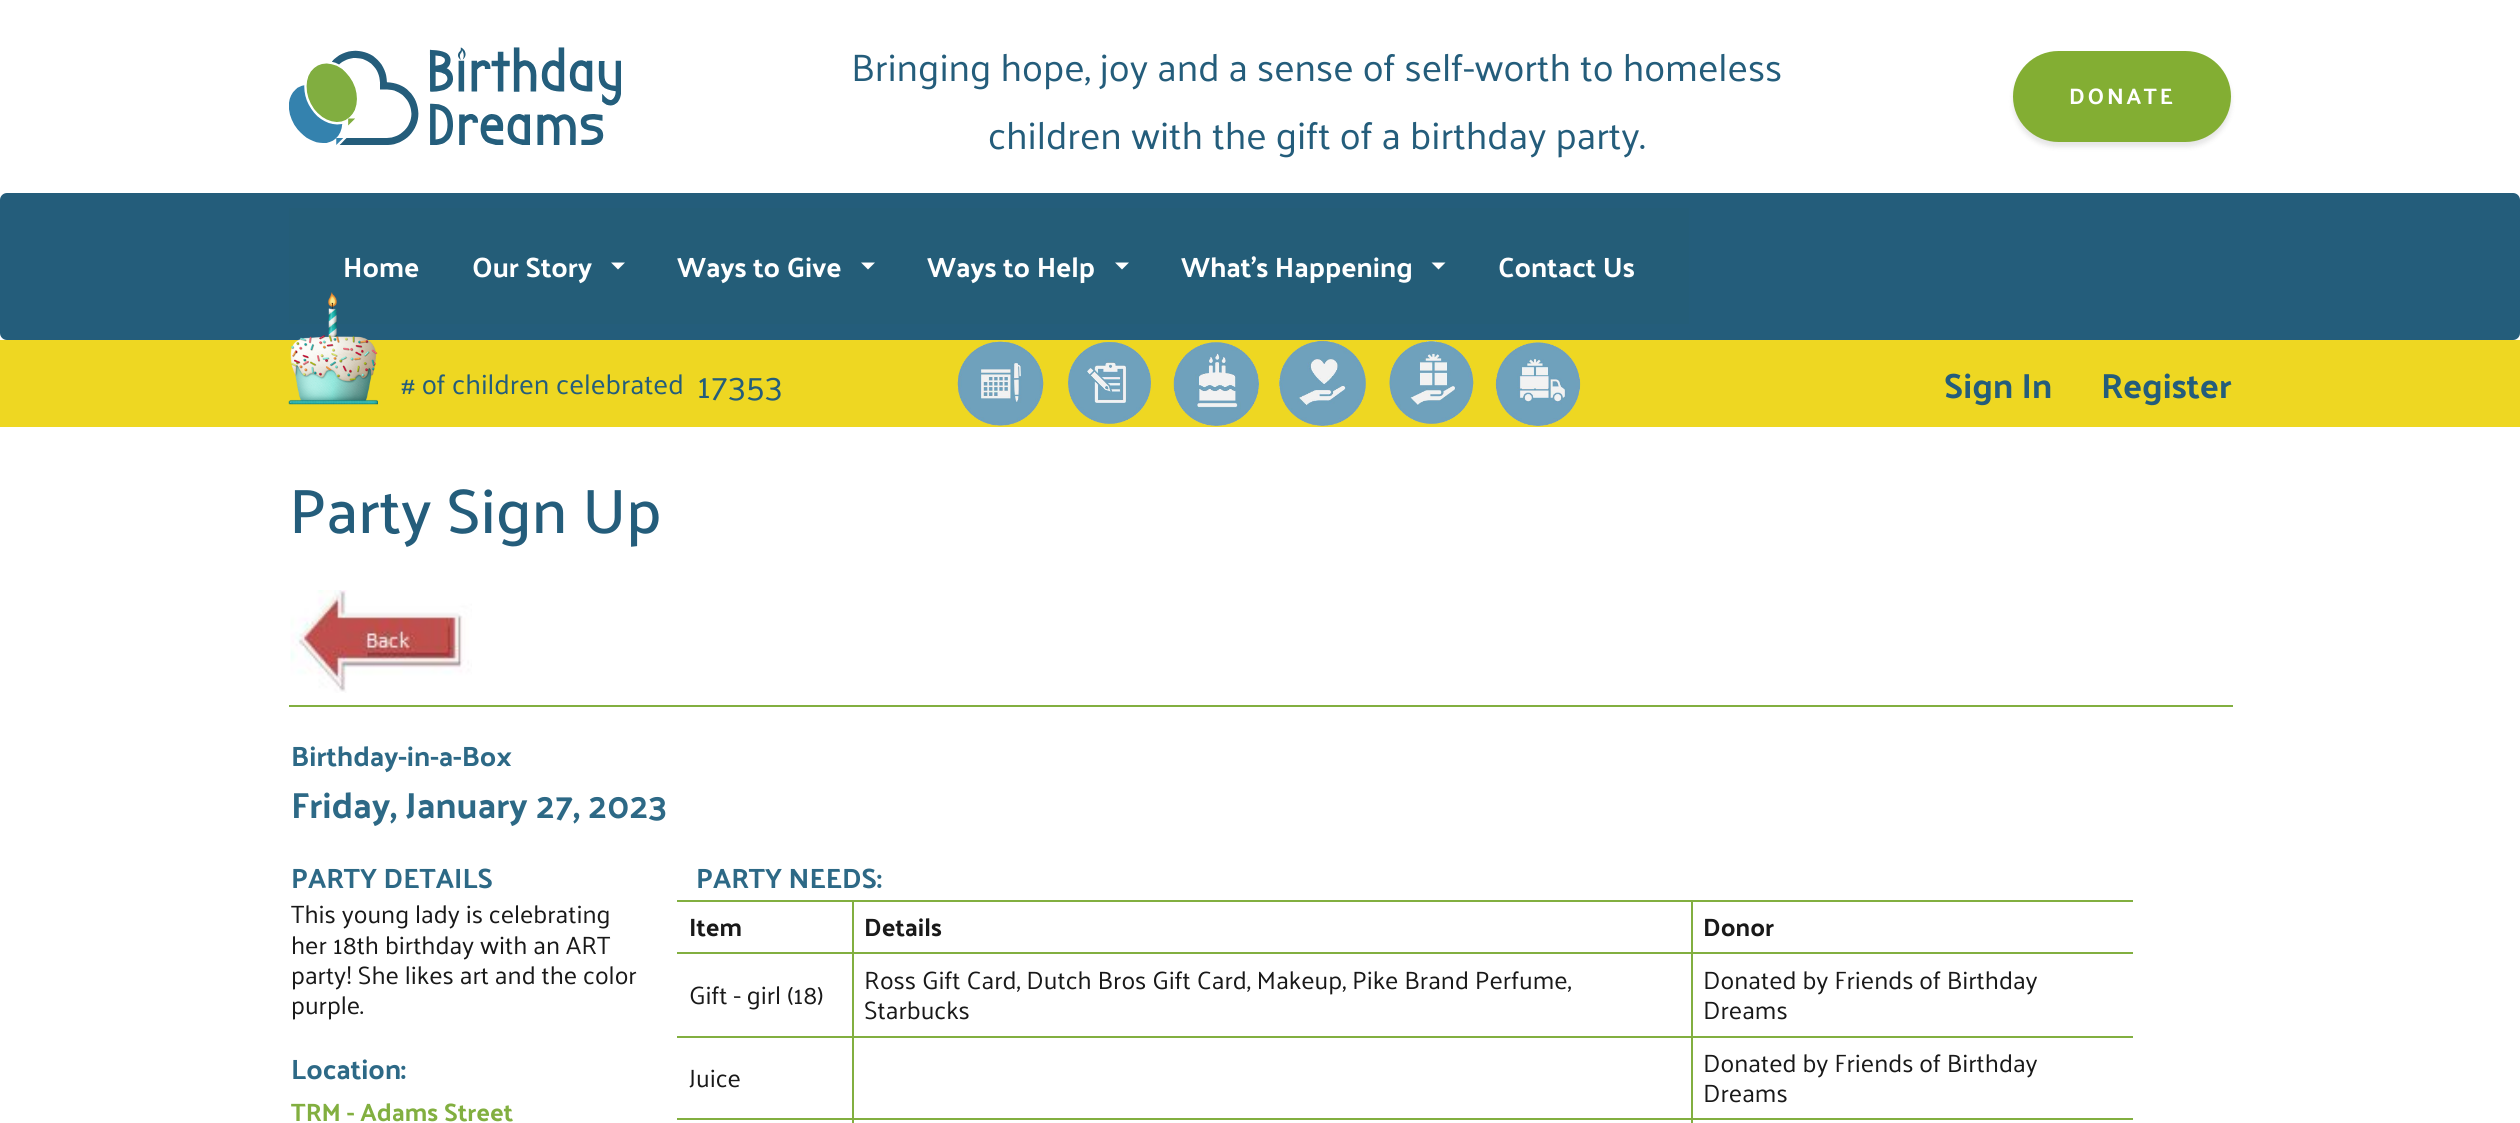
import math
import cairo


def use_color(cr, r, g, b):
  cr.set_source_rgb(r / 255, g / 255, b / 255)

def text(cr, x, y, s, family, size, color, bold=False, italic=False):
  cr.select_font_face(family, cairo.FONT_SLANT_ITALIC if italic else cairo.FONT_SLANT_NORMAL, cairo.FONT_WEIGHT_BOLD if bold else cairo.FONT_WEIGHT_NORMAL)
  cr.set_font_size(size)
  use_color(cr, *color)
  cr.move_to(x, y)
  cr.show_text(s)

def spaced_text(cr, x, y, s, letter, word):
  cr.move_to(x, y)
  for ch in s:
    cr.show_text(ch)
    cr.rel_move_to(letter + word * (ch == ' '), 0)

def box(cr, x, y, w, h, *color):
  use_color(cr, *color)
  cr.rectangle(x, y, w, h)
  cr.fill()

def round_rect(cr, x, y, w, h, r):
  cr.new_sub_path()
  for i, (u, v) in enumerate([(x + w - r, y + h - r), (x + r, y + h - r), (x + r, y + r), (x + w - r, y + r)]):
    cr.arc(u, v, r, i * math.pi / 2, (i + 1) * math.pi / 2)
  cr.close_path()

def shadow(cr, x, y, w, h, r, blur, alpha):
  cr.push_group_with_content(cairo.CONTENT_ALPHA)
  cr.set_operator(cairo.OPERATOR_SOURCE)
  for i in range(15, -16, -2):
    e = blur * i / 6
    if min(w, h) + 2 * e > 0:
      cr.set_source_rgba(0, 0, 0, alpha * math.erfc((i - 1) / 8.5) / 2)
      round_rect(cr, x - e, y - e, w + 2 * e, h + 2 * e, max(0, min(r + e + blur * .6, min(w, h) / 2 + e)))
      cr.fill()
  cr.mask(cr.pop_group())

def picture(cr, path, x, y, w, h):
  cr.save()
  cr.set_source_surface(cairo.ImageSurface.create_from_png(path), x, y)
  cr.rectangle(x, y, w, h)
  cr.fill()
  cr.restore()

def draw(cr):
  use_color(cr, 255, 255, 255)
  cr.paint()
  picture(cr, "img_01.png", 289, 47, 332, 98)
  use_color(cr, 0, 0, 0)
  shadow(cr, 2013, 56, 218, 91, 45.5, 2.5, 0.1)
  use_color(cr, 131, 174, 51)
  round_rect(cr, 2013, 51, 218, 91, 45.5)
  cr.fill()
  use_color(cr, 36, 93, 123)
  round_rect(cr, 0, 193, 2520, 147, 7)
  cr.fill()
  box(cr, 289, 208, 1400, 116, 36, 93, 120)
  use_color(cr, 255, 255, 255)
  cr.new_path()
  cr.move_to(611, 262.5)
  cr.line_to(625, 262.5)
  cr.line_to(618, 269.5)
  cr.close_path()
  cr.fill()
  cr.new_path()
  cr.move_to(861, 262.5)
  cr.line_to(875, 262.5)
  cr.line_to(868, 269.5)
  cr.close_path()
  cr.fill()
  cr.new_path()
  cr.move_to(1115, 262.5)
  cr.line_to(1129, 262.5)
  cr.line_to(1122, 269.5)
  cr.close_path()
  cr.fill()
  cr.new_path()
  cr.move_to(1431.5, 262.5)
  cr.line_to(1445.5, 262.5)
  cr.line_to(1438.5, 269.5)
  cr.close_path()
  cr.fill()
  box(cr, 0, 340, 2520, 87, 238, 215, 34)
  picture(cr, "img_02.png", 288, 292, 90, 113)
  picture(cr, "img_03.png", 957, 341, 87, 85)
  picture(cr, "img_04.png", 1068, 342, 83, 82)
  picture(cr, "img_05.png", 1173, 342, 86, 84)
  picture(cr, "img_06.png", 1279, 340, 87, 86)
  picture(cr, "img_07.png", 1389, 341, 85, 83)
  picture(cr, "img_08.png", 1495, 342, 86, 84)
  picture(cr, "img_09.png", 290, 590, 182, 103)
  box(cr, 289, 705, 1944, 2, 130, 175, 64)
  box(cr, 677, 900, 1456, 2, 130, 175, 64)
  box(cr, 677, 952, 1456, 2, 130, 175, 64)
  box(cr, 677, 1036, 1456, 2, 130, 175, 64)
  box(cr, 677, 1118, 1456, 2, 130, 175, 64)
  box(cr, 852, 1118, 2, 5, 130, 175, 64)
  box(cr, 852, 1036, 2, 84, 130, 175, 64)
  box(cr, 852, 952, 2, 86, 130, 175, 64)
  box(cr, 852, 900, 2, 54, 130, 175, 64)
  box(cr, 1691, 1118, 2, 5, 130, 175, 64)
  box(cr, 1691, 1036, 2, 84, 130, 175, 64)
  box(cr, 1691, 952, 2, 86, 130, 175, 64)
  box(cr, 1691, 900, 2, 54, 130, 175, 64)
  text(cr, 851, 81, "Bringing hope, joy and a sense of self-worth to homeless", "Palanquin", 38.5, (36, 93, 123))
  text(cr, 988, 149, "children with the gift of a birthday party.", "Palanquin", 38.5, (36, 93, 123))
  cr.select_font_face("Palanquin", cairo.FONT_SLANT_NORMAL, cairo.FONT_WEIGHT_BOLD)
  cr.set_font_size(22.5)
  use_color(cr, 255, 255, 255)
  spaced_text(cr, 2069, 104, "DONATE", 2.75, 0)
  text(cr, 343, 277, "Home", "Palanquin", 28, (255, 255, 255), bold=True)
  text(cr, 472, 277, "Our Story", "Palanquin", 28, (255, 255, 255), bold=True)
  text(cr, 677, 277, "Ways to Give", "Palanquin", 28, (255, 255, 255), bold=True)
  text(cr, 927, 277, "Ways to Help", "Palanquin", 28, (255, 255, 255), bold=True)
  text(cr, 1181, 277, "What's Happening", "Palanquin", 28, (255, 255, 255), bold=True)
  text(cr, 1498, 277, "Contact Us", "Palanquin", 28, (255, 255, 255), bold=True)
  text(cr, 401, 394, "# of children celebrated", "Palanquin", 28, (36, 93, 123))
  text(cr, 697, 398, "17353", "Palanquin", 35, (36, 93, 123))
  text(cr, 1944, 398, "Sign In", "Palanquin", 35, (36, 93, 123), bold=True)
  text(cr, 2101, 398, "Register", "Palanquin", 35, (36, 93, 123), bold=True)
  text(cr, 289, 533, "Party Sign Up", "Palanquin Medium", 63, (36, 93, 123))
  text(cr, 291, 766, "Birthday-in-a-Box", "Palanquin", 28, (45, 105, 134), bold=True)
  text(cr, 291, 818, "Friday, January 27, 2023", "Palanquin", 36.4, (45, 105, 134), bold=True)
  text(cr, 291, 888, "PARTY DETAILS", "Palanquin", 28, (45, 105, 134), bold=True)
  text(cr, 291, 923, "This young lady is celebrating", "Palanquin", 25.2, (25, 25, 25))
  text(cr, 291, 954, "her 18th birthday with an ART", "Palanquin", 25.2, (25, 25, 25))
  text(cr, 291, 984, "party! She likes art and the color", "Palanquin", 25.2, (25, 25, 25))
  text(cr, 291, 1014, "purple.", "Palanquin", 25.2, (25, 25, 25))
  text(cr, 291, 1079, "Location:", "Palanquin", 28, (45, 105, 134), bold=True)
  text(cr, 291, 1121, "TRM - Adams Street", "Palanquin", 25.2, (130, 175, 64), bold=True)
  text(cr, 696, 888, "PARTY NEEDS:", "Palanquin", 28, (45, 105, 134), bold=True)
  text(cr, 689, 936, "Item", "Palanquin", 25.2, (25, 25, 25), bold=True)
  text(cr, 864, 936, "Details", "Palanquin", 25.2, (25, 25, 25), bold=True)
  text(cr, 1703, 936, "Donor", "Palanquin", 25.2, (25, 25, 25), bold=True)
  text(cr, 689, 1004, "Gift - girl (18)", "Palanquin", 25.2, (25, 25, 25))
  text(cr, 864, 989, "Ross Gift Card, Dutch Bros Gift Card, Makeup, Pike Brand Perfume,", "Palanquin", 25.2, (25, 25, 25))
  text(cr, 864, 1019, "Starbucks", "Palanquin", 25.2, (25, 25, 25))
  text(cr, 1703, 989, "Donated by Friends of Birthday", "Palanquin", 25.2, (25, 25, 25))
  text(cr, 1703, 1019, "Dreams", "Palanquin", 25.2, (25, 25, 25))
  text(cr, 689, 1087, "Juice", "Palanquin", 25.2, (25, 25, 25))
  text(cr, 1703, 1072, "Donated by Friends of Birthday", "Palanquin", 25.2, (25, 25, 25))
  text(cr, 1703, 1102, "Dreams", "Palanquin", 25.2, (25, 25, 25))


surface = cairo.ImageSurface(cairo.FORMAT_RGB24, 2520, 1123)
cr = cairo.Context(surface)
options = cairo.FontOptions()
options.set_hint_metrics(cairo.HINT_METRICS_OFF)
options.set_hint_style(cairo.HINT_STYLE_NONE)
cr.set_font_options(options)
cr.set_miter_limit(4)
draw(cr)
surface.write_to_png("out.png")
